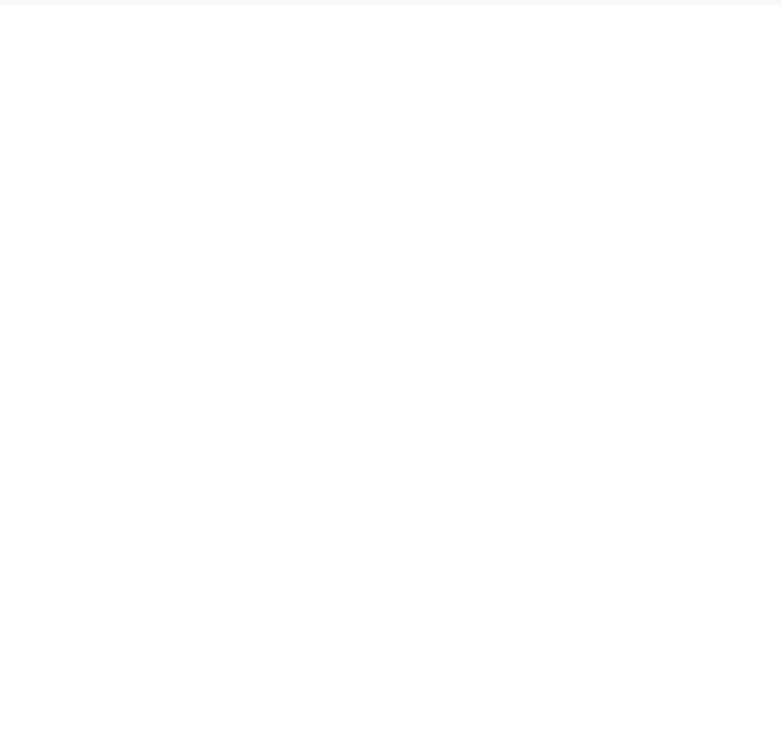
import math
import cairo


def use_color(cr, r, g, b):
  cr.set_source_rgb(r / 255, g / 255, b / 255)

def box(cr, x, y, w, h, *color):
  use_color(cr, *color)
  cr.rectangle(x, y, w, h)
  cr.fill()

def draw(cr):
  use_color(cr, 255, 255, 255)
  cr.paint()
  box(cr, 0, 0, 782, 5, 248, 248, 248)


surface = cairo.ImageSurface(cairo.FORMAT_RGB24, 782, 729)
cr = cairo.Context(surface)
options = cairo.FontOptions()
options.set_hint_metrics(cairo.HINT_METRICS_OFF)
options.set_hint_style(cairo.HINT_STYLE_NONE)
cr.set_font_options(options)
cr.set_miter_limit(4)
draw(cr)
surface.write_to_png("out.png")
